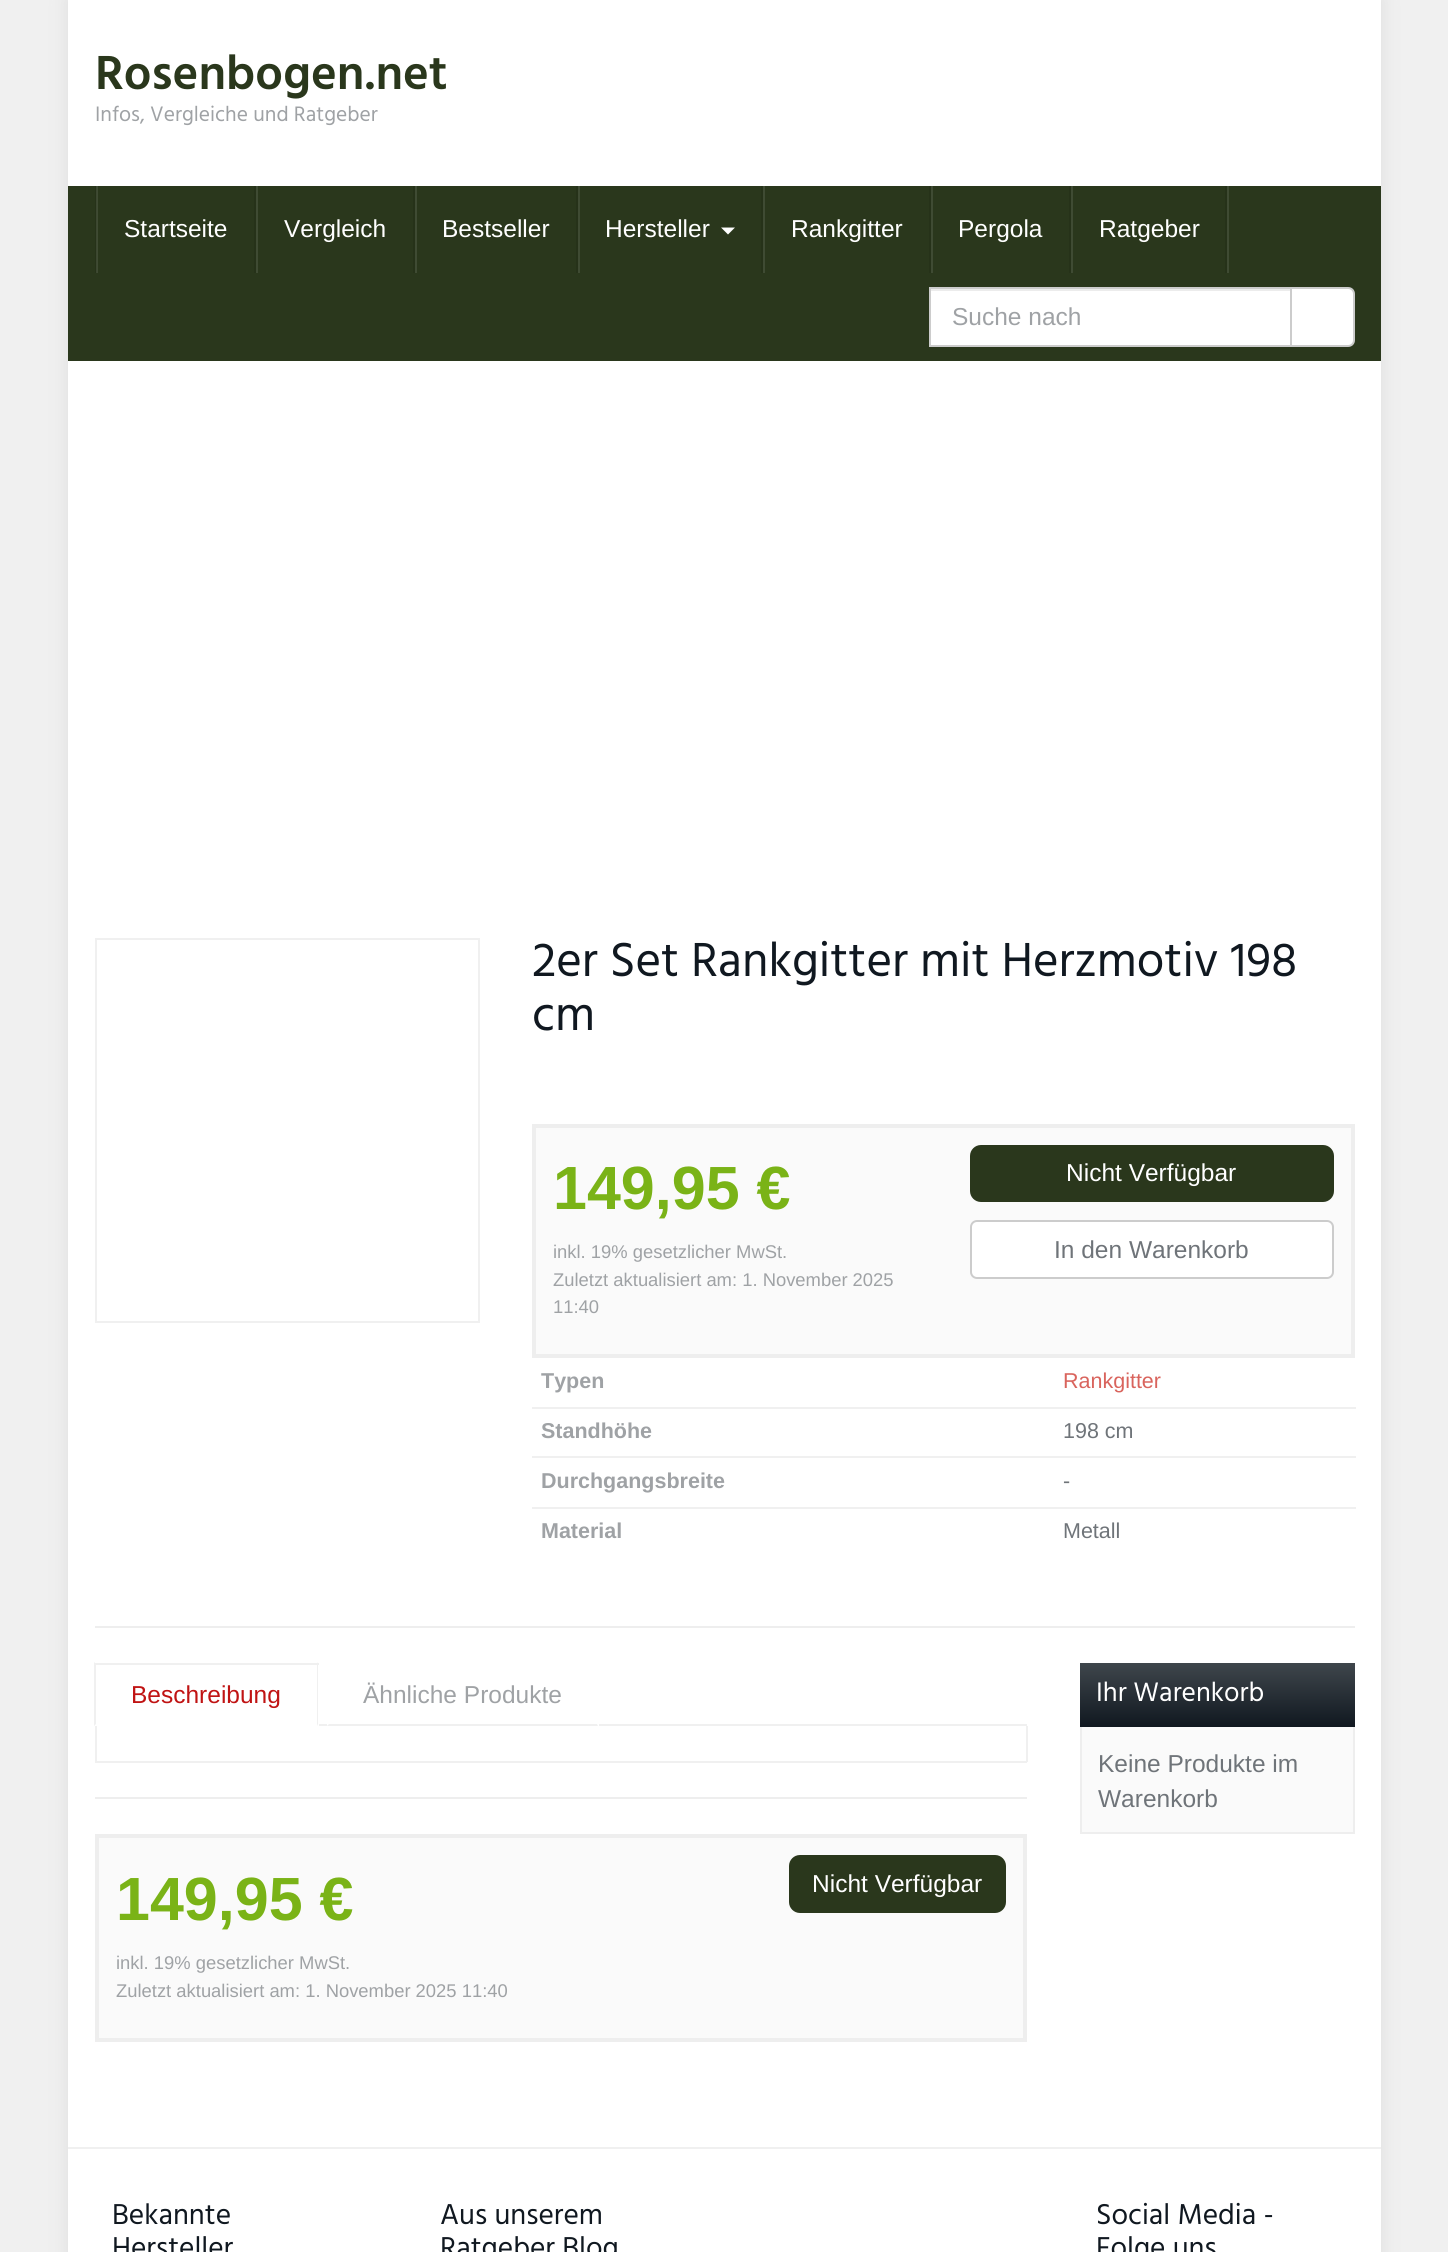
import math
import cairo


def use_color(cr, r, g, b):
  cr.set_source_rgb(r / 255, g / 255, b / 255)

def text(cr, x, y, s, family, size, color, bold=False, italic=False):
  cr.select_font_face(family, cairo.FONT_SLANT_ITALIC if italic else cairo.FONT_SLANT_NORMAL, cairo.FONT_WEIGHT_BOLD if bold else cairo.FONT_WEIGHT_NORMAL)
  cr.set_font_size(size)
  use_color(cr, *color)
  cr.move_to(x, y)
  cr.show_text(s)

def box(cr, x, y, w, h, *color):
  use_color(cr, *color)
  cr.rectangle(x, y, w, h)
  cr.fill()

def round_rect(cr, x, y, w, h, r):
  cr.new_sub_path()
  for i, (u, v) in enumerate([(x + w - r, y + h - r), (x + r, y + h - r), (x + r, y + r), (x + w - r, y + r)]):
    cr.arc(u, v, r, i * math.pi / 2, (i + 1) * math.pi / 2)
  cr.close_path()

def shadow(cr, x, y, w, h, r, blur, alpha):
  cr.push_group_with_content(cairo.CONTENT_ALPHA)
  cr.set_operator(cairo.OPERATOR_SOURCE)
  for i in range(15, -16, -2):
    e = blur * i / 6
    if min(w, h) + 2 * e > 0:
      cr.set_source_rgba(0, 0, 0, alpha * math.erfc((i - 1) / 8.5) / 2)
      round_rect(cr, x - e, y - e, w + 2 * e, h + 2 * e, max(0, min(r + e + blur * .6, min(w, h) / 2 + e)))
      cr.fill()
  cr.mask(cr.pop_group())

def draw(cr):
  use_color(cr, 240, 240, 240)
  cr.paint()
  use_color(cr, 221, 221, 221)
  shadow(cr, 68, 0, 1313, 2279, 0, 9, 1)
  box(cr, 68, 0, 1313, 2252, 255, 255, 255)
  box(cr, 68, 186, 1313, 175, 42, 55, 28)
  box(cr, 97, 186, 1, 87, 63, 75, 51)
  box(cr, 1227, 186, 2, 87, 63, 75, 51)
  box(cr, 95, 186, 1, 87, 38, 50, 25)
  box(cr, 96, 186, 1, 87, 60, 71, 48)
  box(cr, 254, 186, 2, 87, 38, 50, 25)
  box(cr, 413, 186, 2, 87, 38, 50, 25)
  box(cr, 256, 186, 2, 87, 63, 75, 51)
  box(cr, 576, 186, 2, 87, 38, 50, 25)
  box(cr, 415, 186, 2, 87, 63, 75, 51)
  box(cr, 761, 186, 2, 87, 38, 50, 25)
  box(cr, 578, 186, 2, 87, 63, 75, 51)
  use_color(cr, 255, 255, 255)
  cr.new_path()
  cr.move_to(721, 227.5)
  cr.line_to(735, 227.5)
  cr.line_to(728, 234.5)
  cr.close_path()
  cr.fill()
  box(cr, 929, 186, 2, 87, 38, 50, 25)
  box(cr, 763, 186, 2, 87, 63, 75, 51)
  box(cr, 1069, 186, 2, 87, 38, 50, 25)
  box(cr, 931, 186, 2, 87, 63, 75, 51)
  box(cr, 1225, 186, 2, 87, 38, 50, 25)
  box(cr, 1071, 186, 2, 87, 63, 75, 51)
  box(cr, 931, 291, 359, 54, 255, 255, 255)
  box(cr, 931, 289, 359, 2, 236, 236, 236)
  cr.rectangle(930, 288, 361, 58)
  use_color(cr, 204, 204, 204)
  cr.stroke()
  use_color(cr, 255, 255, 255)
  cr.new_path()
  cr.move_to(1291, 288)
  cr.line_to(1348, 288)
  cr.curve_to(1351.5, 288, 1354, 290.5, 1354, 294)
  cr.line_to(1354, 340)
  cr.curve_to(1354, 343.5, 1351.5, 346, 1348, 346)
  cr.line_to(1291, 346)
  cr.close_path()
  cr.fill_preserve()
  use_color(cr, 204, 204, 204)
  cr.stroke()
  cr.rectangle(96, 939, 383, 383)
  use_color(cr, 240, 240, 240)
  cr.stroke()
  use_color(cr, 250, 250, 250)
  cr.rectangle(534, 1126, 819, 230)
  cr.fill_preserve()
  use_color(cr, 238, 238, 238)
  cr.set_line_width(4)
  cr.stroke()
  use_color(cr, 42, 55, 28)
  round_rect(cr, 971, 1146, 362, 55, 10)
  cr.fill_preserve()
  cr.set_line_width(2)
  cr.stroke()
  use_color(cr, 255, 255, 255)
  round_rect(cr, 971, 1221, 362, 57, 6)
  cr.fill_preserve()
  use_color(cr, 204, 204, 204)
  cr.stroke()
  box(cr, 532, 1407, 824, 2, 240, 240, 240)
  box(cr, 532, 1456, 824, 2, 240, 240, 240)
  box(cr, 532, 1507, 824, 2, 240, 240, 240)
  box(cr, 95, 1626, 1260, 2, 238, 238, 238)
  box(cr, 319, 1724, 708, 2, 240, 240, 240)
  box(cr, 95, 1663, 224, 2, 240, 240, 240)
  cr.new_path()
  cr.move_to(318, 1662)
  cr.line_to(318, 1726)
  cr.line_to(317, 1724)
  cr.line_to(317, 1664)
  cr.close_path()
  cr.fill()
  cr.new_path()
  cr.move_to(94, 1726)
  cr.line_to(94, 1662)
  cr.line_to(96, 1664)
  cr.line_to(96, 1724)
  cr.close_path()
  cr.fill()
  box(cr, 327, 1724, 272, 2, 255, 255, 255)
  use_color(cr, 240, 240, 240)
  cr.new_path()
  cr.move_to(598, 1726)
  cr.line_to(327, 1726)
  cr.line_to(329, 1724)
  cr.line_to(597, 1724)
  cr.close_path()
  cr.fill()
  box(cr, 1026, 1726, 2, 36, 240, 240, 240)
  box(cr, 95, 1761, 932, 2, 240, 240, 240)
  box(cr, 95, 1726, 2, 36, 240, 240, 240)
  box(cr, 95, 1797, 932, 2, 238, 238, 238)
  use_color(cr, 250, 250, 250)
  cr.rectangle(97, 1836, 928, 204)
  cr.fill_preserve()
  use_color(cr, 238, 238, 238)
  cr.set_line_width(4)
  cr.stroke()
  use_color(cr, 42, 55, 28)
  round_rect(cr, 790, 1856, 215, 56, 10)
  cr.fill_preserve()
  cr.set_line_width(2)
  cr.stroke()
  box(cr, 1082, 1727, 271, 105, 250, 250, 250)
  cr.rectangle(1081, 1664, 273, 169)
  use_color(cr, 238, 238, 238)
  cr.stroke()
  gradient = cairo.LinearGradient(1217, 1663, 1217, 1727)
  gradient.add_color_stop_rgba(0, 0.247, 0.275, 0.298, 1)
  gradient.add_color_stop_rgba(1, 0.063, 0.094, 0.125, 1)
  cr.set_source(gradient)
  cr.rectangle(1080, 1663, 275, 64)
  cr.fill()
  box(cr, 68, 2147, 1313, 2, 240, 240, 240)
  text(cr, 95, 89, "Rosenbogen.net", "Hind SemiBold", 49, (42, 55, 28))
  text(cr, 95, 121, "Infos, Vergleiche und Ratgeber", "Hind", 21.5, (159, 162, 165))
  text(cr, 124, 237, "Startseite", "Liberation Sans", 24.5, (255, 255, 255))
  text(cr, 284, 237, "Vergleich", "Liberation Sans", 24.5, (255, 255, 255))
  text(cr, 442, 237, "Bestseller", "Liberation Sans", 24.5, (255, 255, 255))
  text(cr, 605, 237, "Hersteller", "Liberation Sans", 24.5, (255, 255, 255))
  text(cr, 791, 237, "Rankgitter", "Liberation Sans", 24.5, (255, 255, 255))
  text(cr, 958, 237, "Pergola", "Liberation Sans", 24.5, (255, 255, 255))
  text(cr, 1099, 237, "Ratgeber", "Liberation Sans", 24.5, (255, 255, 255))
  text(cr, 952, 325, "Suche nach", "Liberation Sans", 24.5, (159, 162, 165))
  text(cr, 532, 976, "2er Set Rankgitter mit Herzmotiv 198", "Hind", 49, (16, 24, 32))
  text(cr, 532, 1030, "cm", "Hind", 49, (16, 24, 32))
  text(cr, 553, 1209, "149,95 €", "Liberation Sans", 61, (122, 179, 23), bold=True)
  text(cr, 553, 1258, "inkl. 19% gesetzlicher MwSt.", "Liberation Sans", 18.4, (159, 162, 165))
  text(cr, 553, 1286, "Zuletzt aktualisiert am: 1. November 2025", "Liberation Sans", 18.4, (159, 162, 165))
  text(cr, 553, 1313, "11:40", "Liberation Sans", 18.4, (159, 162, 165))
  text(cr, 1066, 1181, "Nicht Verfügbar", "Liberation Sans", 24.5, (255, 255, 255))
  text(cr, 1054, 1258, "In den Warenkorb", "Liberation Sans", 24.5, (111, 116, 121))
  text(cr, 541, 1388, "Typen", "Liberation Sans", 21.5, (159, 162, 165), bold=True)
  text(cr, 1063, 1388, "Rankgitter", "Liberation Sans", 21.5, (217, 100, 93))
  text(cr, 541, 1438, "Standhöhe", "Liberation Sans", 21.5, (159, 162, 165), bold=True)
  text(cr, 1063, 1438, "198 cm", "Liberation Sans", 21.5, (111, 116, 121))
  text(cr, 541, 1488, "Durchgangsbreite", "Liberation Sans", 21.5, (159, 162, 165), bold=True)
  text(cr, 1063, 1488, "-", "Liberation Sans", 21.5, (111, 116, 121))
  text(cr, 541, 1538, "Material", "Liberation Sans", 21.5, (159, 162, 165), bold=True)
  text(cr, 1063, 1538, "Metall", "Liberation Sans", 21.5, (111, 116, 121))
  text(cr, 131, 1703, "Beschreibung", "Liberation Sans", 24.5, (192, 19, 19))
  text(cr, 363, 1703, "Ähnliche Produkte", "Liberation Sans", 24.5, (159, 162, 165))
  text(cr, 116, 1920, "149,95 €", "Liberation Sans", 61, (122, 179, 23), bold=True)
  text(cr, 116, 1969, "inkl. 19% gesetzlicher MwSt.", "Liberation Sans", 18.4, (159, 162, 165))
  text(cr, 116, 1997, "Zuletzt aktualisiert am: 1. November 2025 11:40", "Liberation Sans", 18.4, (159, 162, 165))
  text(cr, 812, 1892, "Nicht Verfügbar", "Liberation Sans", 24.5, (255, 255, 255))
  text(cr, 1096, 1701, "Ihr Warenkorb", "Hind", 27.5, (255, 255, 255))
  text(cr, 1098, 1772, "Keine Produkte im", "Liberation Sans", 24.5, (111, 116, 121))
  text(cr, 1098, 1807, "Warenkorb", "Liberation Sans", 24.5, (111, 116, 121))
  text(cr, 112, 2224, "Bekannte", "Hind", 29.5, (16, 24, 32))
  text(cr, 112, 2257, "Hersteller", "Hind", 29.5, (16, 24, 32))
  text(cr, 440, 2224, "Aus unserem", "Hind", 29.5, (16, 24, 32))
  text(cr, 440, 2257, "Ratgeber Blog", "Hind", 29.5, (16, 24, 32))
  text(cr, 1096, 2224, "Social Media -", "Hind", 29.5, (16, 24, 32))
  text(cr, 1096, 2257, "Folge uns", "Hind", 29.5, (16, 24, 32))


surface = cairo.ImageSurface(cairo.FORMAT_RGB24, 1448, 2252)
cr = cairo.Context(surface)
options = cairo.FontOptions()
options.set_hint_metrics(cairo.HINT_METRICS_OFF)
options.set_hint_style(cairo.HINT_STYLE_NONE)
cr.set_font_options(options)
cr.set_miter_limit(4)
draw(cr)
surface.write_to_png("out.png")
